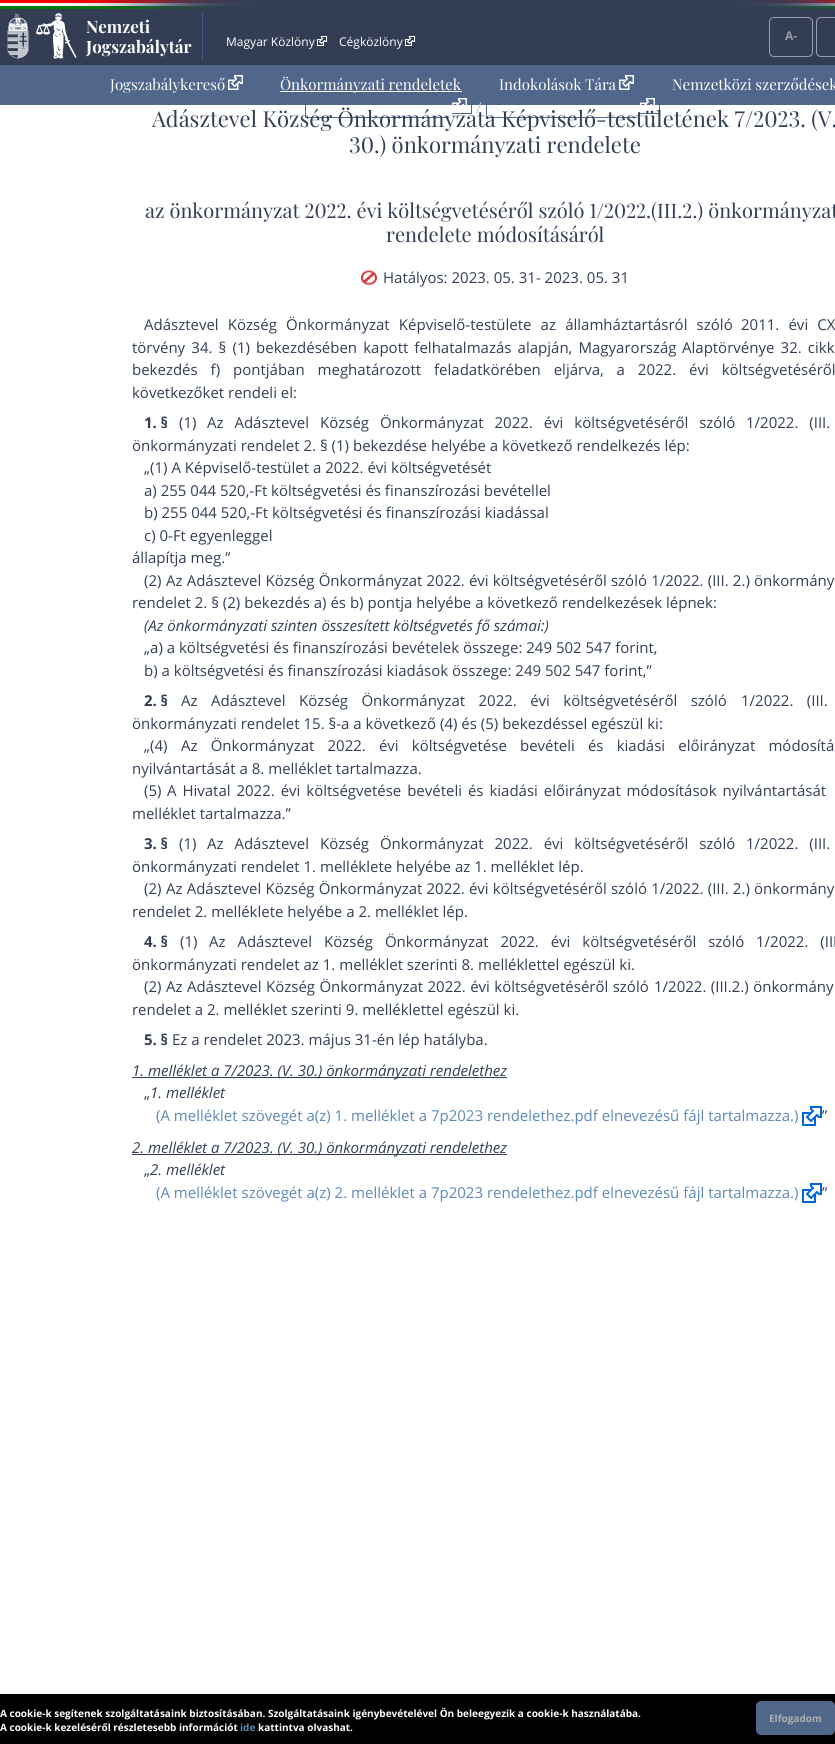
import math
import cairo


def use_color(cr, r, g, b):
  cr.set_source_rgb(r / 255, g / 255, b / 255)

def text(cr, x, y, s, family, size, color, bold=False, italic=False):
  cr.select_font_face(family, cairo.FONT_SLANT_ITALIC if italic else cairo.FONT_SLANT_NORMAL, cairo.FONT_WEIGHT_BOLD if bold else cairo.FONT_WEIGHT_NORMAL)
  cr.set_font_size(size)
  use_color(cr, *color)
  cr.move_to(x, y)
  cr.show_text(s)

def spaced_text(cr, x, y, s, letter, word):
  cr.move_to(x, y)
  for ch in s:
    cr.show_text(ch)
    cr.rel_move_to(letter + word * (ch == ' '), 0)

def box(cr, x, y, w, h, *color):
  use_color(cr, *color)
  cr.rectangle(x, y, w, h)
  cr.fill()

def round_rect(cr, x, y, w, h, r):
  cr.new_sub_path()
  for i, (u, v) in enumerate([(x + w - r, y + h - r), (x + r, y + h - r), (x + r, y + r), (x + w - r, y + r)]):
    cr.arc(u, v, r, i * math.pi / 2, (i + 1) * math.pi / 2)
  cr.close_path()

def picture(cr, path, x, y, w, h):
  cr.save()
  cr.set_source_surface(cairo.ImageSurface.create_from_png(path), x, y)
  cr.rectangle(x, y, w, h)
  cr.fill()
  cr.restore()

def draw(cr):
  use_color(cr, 255, 255, 255)
  cr.paint()
  box(cr, 0, 0, 835, 65, 51, 62, 85)
  picture(cr, "img_01.png", 0, 0, 835, 9)
  picture(cr, "img_02.png", 7, 13, 70, 46)
  box(cr, 202, 12, 1, 49, 61, 89, 136)
  picture(cr, "img_03.png", 317, 36, 10, 10)
  picture(cr, "img_03.png", 405, 36, 10, 10)
  round_rect(cr, 769.5, 17.5, 43, 39, 4.5)
  use_color(cr, 153, 159, 170)
  cr.set_line_width(1)
  cr.stroke()
  round_rect(cr, 816.5, 17.5, 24, 39, 4.5)
  cr.stroke()
  box(cr, 0, 65, 835, 40, 81, 102, 139)
  picture(cr, "img_04.png", 228, 75, 15, 15)
  box(cr, 280, 91, 182, 1, 255, 255, 255)
  picture(cr, "img_04.png", 619, 75, 15, 15)
  box(cr, 305, 117, 144, 1, 81, 102, 139)
  box(cr, 305, 105, 1, 13, 81, 102, 139)
  box(cr, 471, 97, 1, 17, 81, 102, 139)
  box(cr, 452, 113, 20, 1, 81, 102, 139)
  picture(cr, "img_05.png", 452, 98, 15, 7)
  box(cr, 486, 117, 151, 1, 81, 102, 139)
  box(cr, 486, 105, 1, 13, 81, 102, 139)
  box(cr, 659, 97, 1, 17, 81, 102, 139)
  box(cr, 640, 113, 20, 1, 81, 102, 139)
  picture(cr, "img_05.png", 640, 98, 15, 7)
  picture(cr, "img_06.png", 361, 270, 16, 16)
  box(cr, 132, 1077, 375, 1, 51, 62, 85)
  picture(cr, "img_07.png", 802, 1106, 20, 20)
  box(cr, 132, 1154, 375, 1, 51, 62, 85)
  picture(cr, "img_07.png", 802, 1183, 20, 20)
  box(cr, 0, 1694, 835, 50, 0, 0, 0)
  use_color(cr, 81, 102, 139)
  round_rect(cr, 756, 1701, 79, 34, 5)
  cr.fill()
  text(cr, 86, 33, "Nemzeti", "Playfair Display", 17, (255, 255, 255), bold=True)
  text(cr, 86, 53, "Jogszabálytár", "Playfair Display", 17, (255, 255, 255), bold=True)
  text(cr, 226, 46, "Magyar Közlöny", "Open Sans", 12, (255, 255, 255))
  text(cr, 339, 46, "Cégközlöny", "Open Sans", 12, (255, 255, 255))
  text(cr, 785, 40, "A-", "Open Sans", 12, (153, 159, 170), bold=True)
  text(cr, 110, 90, "Jogszabálykereső", "Playfair Display", 15, (255, 255, 255))
  text(cr, 280, 90, "Önkormányzati rendeletek", "Playfair Display", 15, (255, 255, 255))
  text(cr, 499, 90, "Indokolások Tára", "Playfair Display", 15, (255, 255, 255))
  text(cr, 672, 90, "Nemzetközi szerződések", "Playfair Display", 15, (255, 255, 255))
  text(cr, 476, 113, "/", "Open Sans", 15, (204, 204, 204))
  text(cr, 152, 127, "Adásztevel Község Önkormányzata Képviselő-testületének 7/2023. (V.", "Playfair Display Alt", 22, (51, 62, 85))
  text(cr, 349, 153, "30.) önkormányzati rendelete", "Playfair Display Alt", 22, (51, 62, 85))
  text(cr, 145, 218, "az önkormányzat 2022. évi költségvetéséről szóló 1/2022.(III.2.) önkormányzat", "Playfair Display Alt", 20, (51, 62, 85))
  text(cr, 386, 242, "rendelete módosításáról", "Playfair Display", 20, (51, 62, 85))
  text(cr, 383, 283, "Hatályos: 2023. 05. 31- 2023. 05. 31", "Open Sans", 15, (51, 62, 85))
  spaced_text(cr, 144, 330, "Adásztevel Község Önkormányzat Képviselő-testülete az államháztartásról szóló", 0, 5.25)
  spaced_text(cr, 741, 330, "2011. évi CX", 0, 5.25)
  spaced_text(cr, 132, 353, "törvény 34. § (1) bekezdésében kapott felhatalmazás alapján, Magyarország", 0, 2.25)
  spaced_text(cr, 682, 353, "Alaptörvénye 32. cikk", 0, 2.25)
  spaced_text(cr, 132, 375, "bekezdés f) pontjában meghatározott feladatkörében eljárva, a 2022. évi költségvetéséről", 0, 9)
  text(cr, 132, 398, "következőket rendeli el:", "Open Sans", 15, (51, 62, 85))
  text(cr, 144, 428, "1. §", "Open Sans", 15, (51, 62, 85), bold=True)
  text(cr, 179, 428, "(1)", "Open Sans", 15, (51, 62, 85))
  spaced_text(cr, 207, 428, "Az Adásztevel Község Önkormányzat 2022. évi költségvetéséről szóló", 0, 7)
  spaced_text(cr, 746, 428, "1/2022. (III.", 0, 7)
  text(cr, 132, 451, "önkormányzati rendelet 2. § (1) bekezdése helyébe a következő rendelkezés lép:", "Open Sans", 15, (51, 62, 85))
  text(cr, 144, 473, "„(1) A Képviselő-testület a 2022. évi költségvetését", "Open Sans", 15, (51, 62, 85))
  text(cr, 144, 496, "a) 255 044 520,-Ft költségvetési és finanszírozási bevétellel", "Open Sans", 15, (51, 62, 85))
  text(cr, 144, 518, "b) 255 044 520,-Ft költségvetési és finanszírozási kiadással", "Open Sans", 15, (51, 62, 85))
  text(cr, 144, 541, "c) 0-Ft egyenleggel", "Open Sans", 15, (51, 62, 85))
  text(cr, 132, 563, "állapítja meg.”", "Open Sans", 15, (51, 62, 85))
  text(cr, 144, 586, "(2)", "Open Sans", 15, (51, 62, 85))
  spaced_text(cr, 166, 586, "Az Adásztevel Község Önkormányzat 2022. évi költségvetéséről szóló 1/2022. (III. 2.) önkormány", 0, 0.25)
  text(cr, 132, 608, "rendelet 2. § (2) bekezdés a) és b) pontja helyébe a következő rendelkezések lépnek:", "Open Sans", 15, (51, 62, 85))
  text(cr, 144, 631, "(Az önkormányzati szinten összesített költségvetés fő számai:)", "Open Sans", 15, (51, 62, 85), italic=True)
  text(cr, 144, 653, "„a) a költségvetési és finanszírozási bevételek összege: 249 502 547 forint,", "Open Sans", 15, (51, 62, 85))
  text(cr, 144, 676, "b) a költségvetési és finanszírozási kiadások összege: 249 502 547 forint,”", "Open Sans", 15, (51, 62, 85))
  text(cr, 144, 706, "2. §", "Open Sans", 15, (51, 62, 85), bold=True)
  cr.select_font_face("Open Sans")
  spaced_text(cr, 181, 706, "Az Adásztevel Község Önkormányzat 2022. évi költségvetéséről szóló", 0, 9.5)
  spaced_text(cr, 741, 706, "1/2022. (III.", 0, 9.5)
  text(cr, 132, 729, "önkormányzati rendelet 15. §-a a következő (4) és (5) bekezdéssel egészül ki:", "Open Sans", 15, (51, 62, 85))
  text(cr, 144, 751, "„(4)", "Open Sans", 15, (51, 62, 85))
  spaced_text(cr, 181, 751, "Az Önkormányzat 2022. évi költségvetése bevételi és kiadási előirányzat módosítá", 0, 9.25)
  text(cr, 132, 774, "nyilvántartását a 8. melléklet tartalmazza.", "Open Sans", 15, (51, 62, 85))
  text(cr, 144, 796, "(5)", "Open Sans", 15, (51, 62, 85))
  spaced_text(cr, 167, 796, "A Hivatal 2022. évi költségvetése bevételi és kiadási előirányzat módosítások nyilvántartását", 0, 2)
  text(cr, 132, 819, "melléklet tartalmazza.”", "Open Sans", 15, (51, 62, 85))
  text(cr, 144, 849, "3. §", "Open Sans", 15, (51, 62, 85), bold=True)
  text(cr, 179, 849, "(1)", "Open Sans", 15, (51, 62, 85))
  spaced_text(cr, 207, 849, "Az Adásztevel Község Önkormányzat 2022. évi költségvetéséről szóló", 0, 7)
  spaced_text(cr, 746, 849, "1/2022. (III.", 0, 7)
  text(cr, 132, 872, "önkormányzati rendelet 1. melléklete helyébe az 1. melléklet lép.", "Open Sans", 15, (51, 62, 85))
  text(cr, 144, 894, "(2)", "Open Sans", 15, (51, 62, 85))
  spaced_text(cr, 166, 894, "Az Adásztevel Község Önkormányzat 2022. évi költségvetéséről szóló 1/2022. (III. 2.) önkormány", 0, 0.25)
  text(cr, 132, 917, "rendelet 2. melléklete helyébe a 2. melléklet lép.", "Open Sans", 15, (51, 62, 85))
  text(cr, 144, 947, "4. §", "Open Sans", 15, (51, 62, 85), bold=True)
  text(cr, 180, 947, "(1)", "Open Sans", 15, (51, 62, 85))
  spaced_text(cr, 209, 947, "Az Adásztevel Község Önkormányzat 2022. évi költségvetéséről szóló", 0, 8)
  spaced_text(cr, 756, 947, "1/2022. (III", 0, 8)
  text(cr, 132, 970, "önkormányzati rendelet az 1. melléklet szerinti 8. melléklettel egészül ki.", "Open Sans", 15, (51, 62, 85))
  text(cr, 144, 992, "(2)", "Open Sans", 15, (51, 62, 85))
  spaced_text(cr, 166, 992, "Az Adásztevel Község Önkormányzat 2022. évi költségvetéséről szóló", 0, 0.5)
  spaced_text(cr, 654, 992, "1/2022. (III.2.) önkormány", 0, 0.5)
  text(cr, 132, 1015, "rendelet a 2. melléklet szerinti 9. melléklettel egészül ki.", "Open Sans", 15, (51, 62, 85))
  text(cr, 144, 1045, "5. §", "Open Sans", 15, (51, 62, 85), bold=True)
  text(cr, 172, 1045, "Ez a rendelet 2023. május 31-én lép hatályba.", "Open Sans", 15, (51, 62, 85))
  text(cr, 132, 1076, "1. melléklet a 7/2023. (V. 30.) önkormányzati rendelethez", "Open Sans", 15, (51, 62, 85), italic=True)
  text(cr, 144, 1098, "„", "Open Sans", 15, (51, 62, 85))
  text(cr, 150, 1098, "1. melléklet", "Open Sans", 15, (51, 62, 85), italic=True)
  text(cr, 156, 1121, "(A melléklet szövegét a(z) 1. melléklet a 7p2023 rendelethez.pdf elnevezésű fájl tartalmazza.)", "Open Sans", 15, (93, 137, 184))
  text(cr, 822, 1121, "”", "Open Sans", 15, (51, 62, 85))
  text(cr, 132, 1153, "2. melléklet a 7/2023. (V. 30.) önkormányzati rendelethez", "Open Sans", 15, (51, 62, 85), italic=True)
  text(cr, 144, 1175, "„", "Open Sans", 15, (51, 62, 85))
  text(cr, 150, 1175, "2. melléklet", "Open Sans", 15, (51, 62, 85), italic=True)
  text(cr, 156, 1198, "(A melléklet szövegét a(z) 2. melléklet a 7p2023 rendelethez.pdf elnevezésű fájl tartalmazza.)", "Open Sans", 15, (93, 137, 184))
  text(cr, 822, 1198, "”", "Open Sans", 15, (51, 62, 85))
  text(cr, 0, 1717, "A cookie-k segítenek szolgáltatásaink biztosításában. Szolgáltatásaink igénybevételével Ön beleegyezik a cookie-k használatába.", "Open Sans", 10, (255, 255, 255), bold=True)
  text(cr, 0, 1731, "A cookie-k kezeléséről részletesebb információt", "Open Sans", 10, (255, 255, 255), bold=True)
  text(cr, 240, 1731, "ide", "Open Sans", 10, (93, 137, 184), bold=True)
  text(cr, 258, 1731, "kattintva olvashat.", "Open Sans", 10, (255, 255, 255), bold=True)
  text(cr, 769, 1722, "Elfogadom", "Open Sans", 10, (175, 175, 175), bold=True)


surface = cairo.ImageSurface(cairo.FORMAT_RGB24, 835, 1744)
cr = cairo.Context(surface)
options = cairo.FontOptions()
options.set_hint_metrics(cairo.HINT_METRICS_OFF)
options.set_hint_style(cairo.HINT_STYLE_NONE)
cr.set_font_options(options)
cr.set_miter_limit(4)
draw(cr)
surface.write_to_png("out.png")
